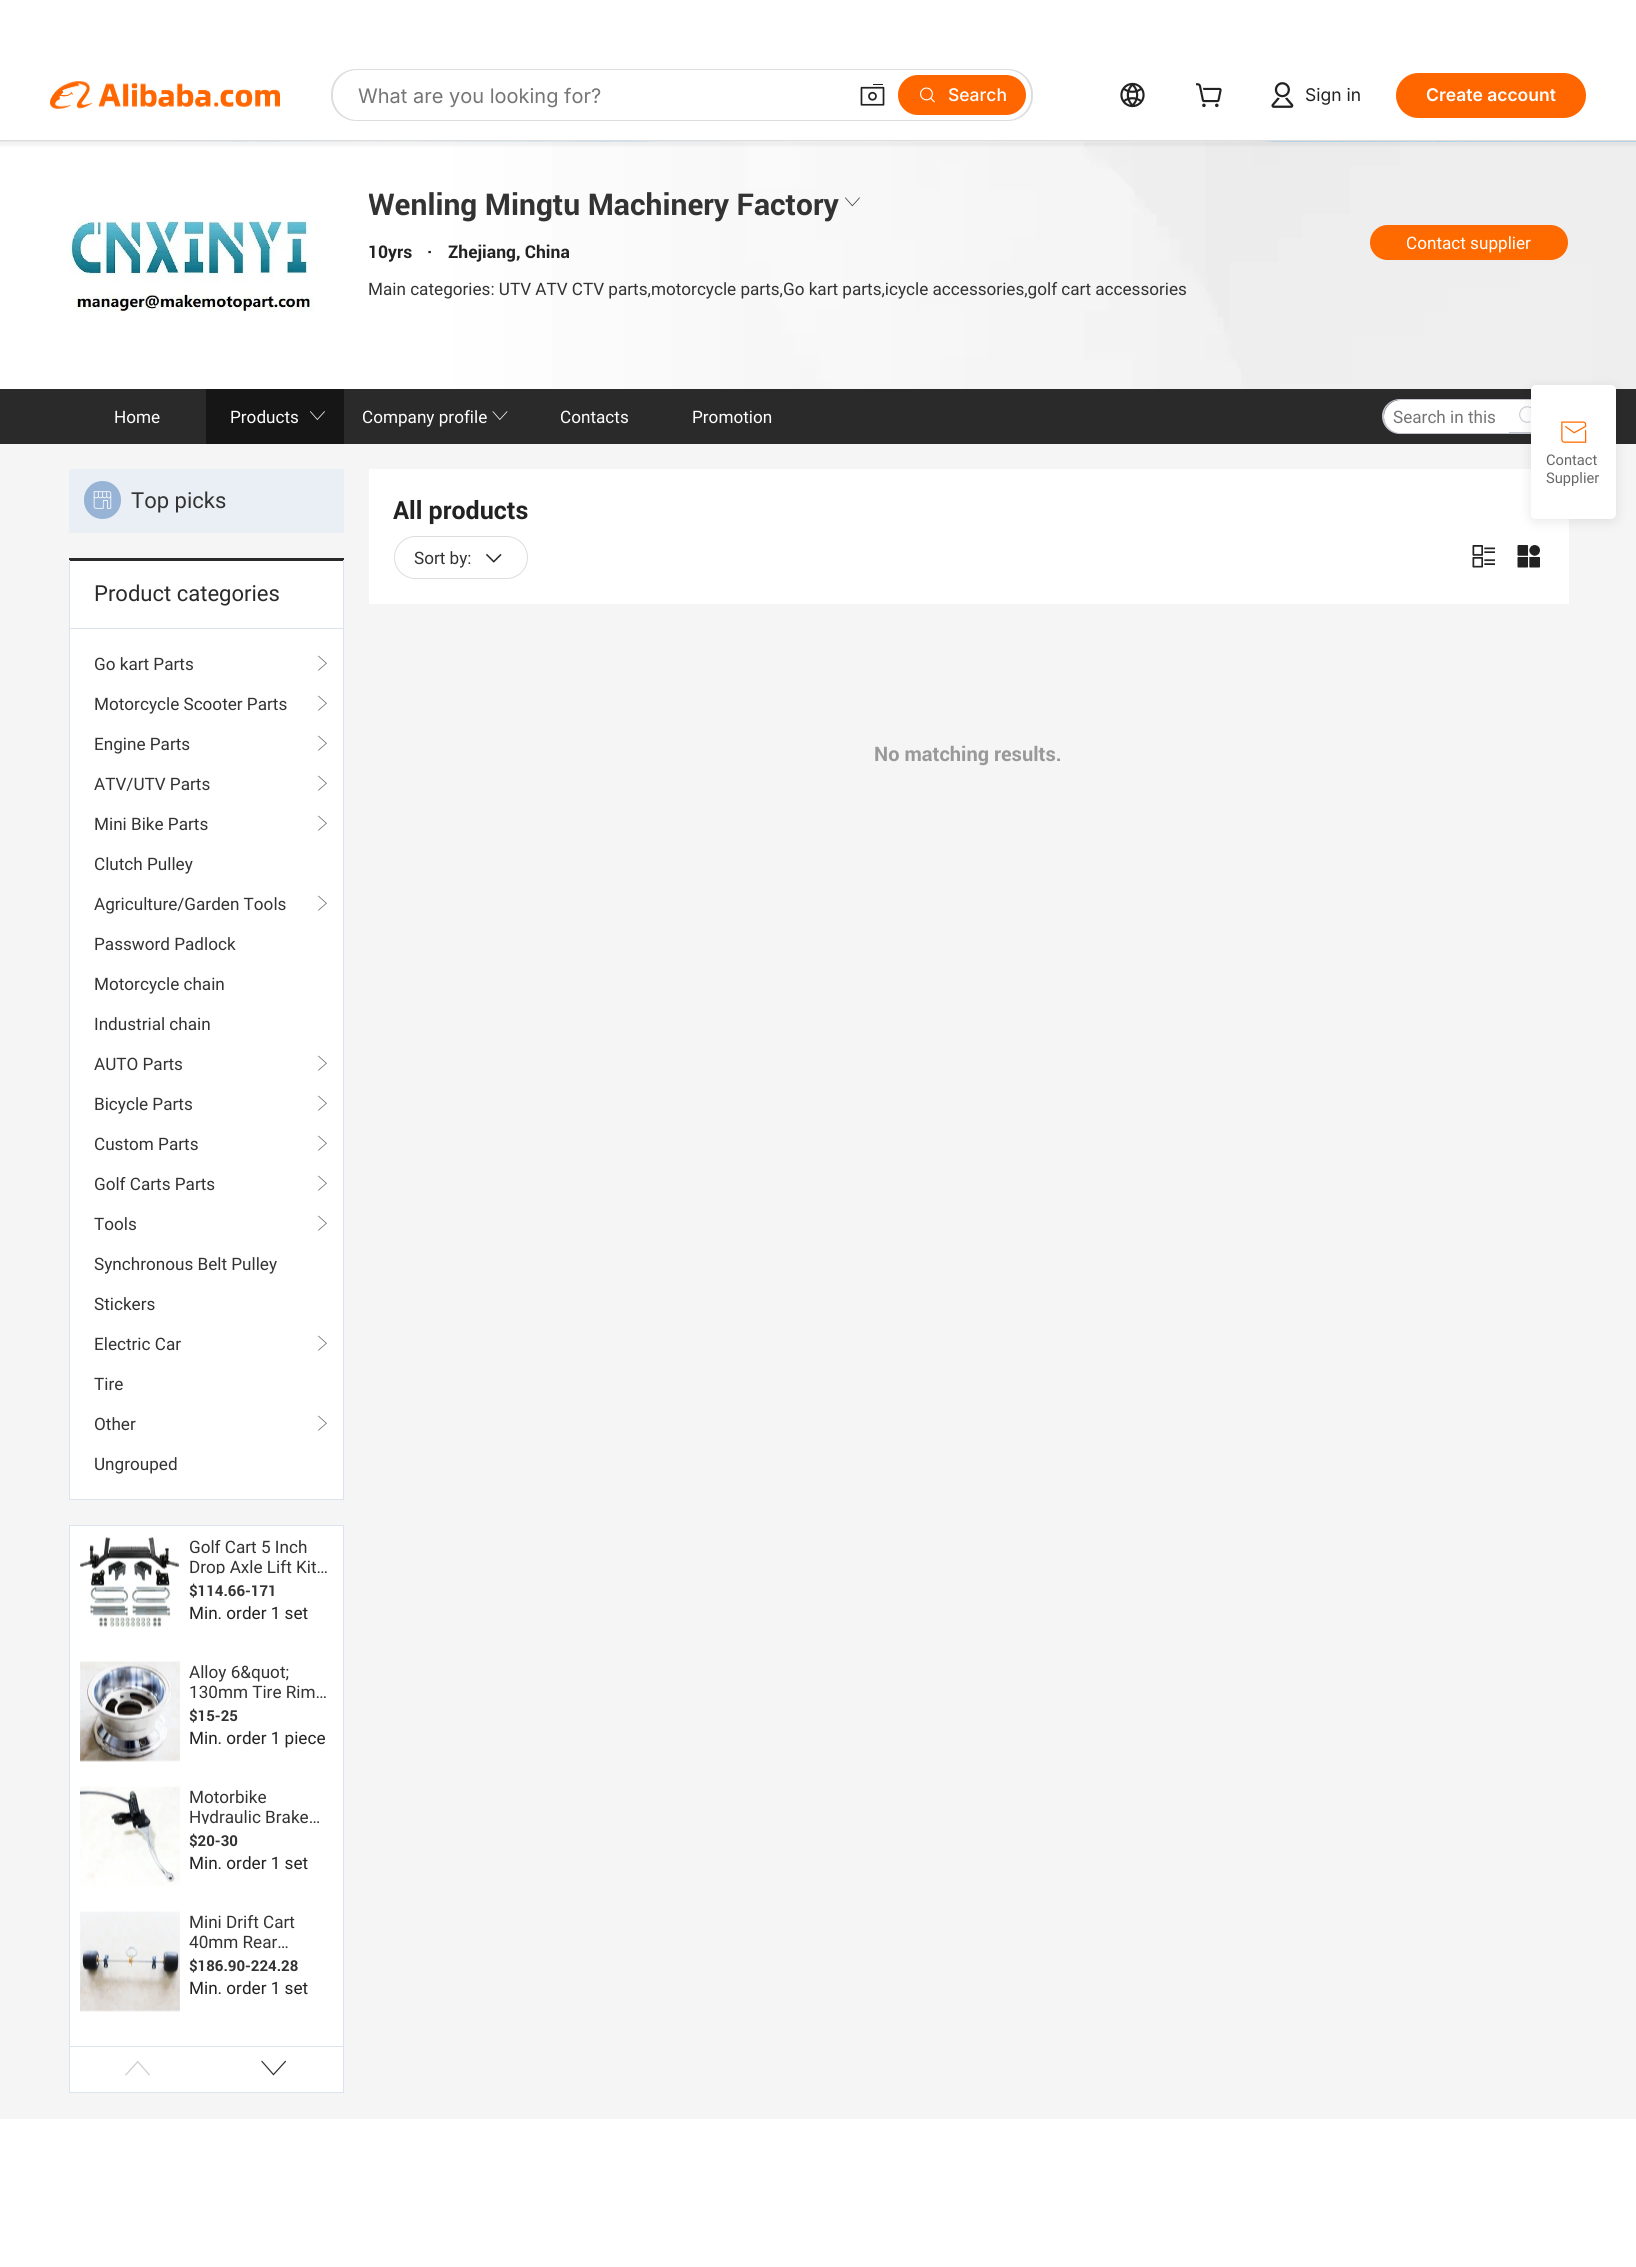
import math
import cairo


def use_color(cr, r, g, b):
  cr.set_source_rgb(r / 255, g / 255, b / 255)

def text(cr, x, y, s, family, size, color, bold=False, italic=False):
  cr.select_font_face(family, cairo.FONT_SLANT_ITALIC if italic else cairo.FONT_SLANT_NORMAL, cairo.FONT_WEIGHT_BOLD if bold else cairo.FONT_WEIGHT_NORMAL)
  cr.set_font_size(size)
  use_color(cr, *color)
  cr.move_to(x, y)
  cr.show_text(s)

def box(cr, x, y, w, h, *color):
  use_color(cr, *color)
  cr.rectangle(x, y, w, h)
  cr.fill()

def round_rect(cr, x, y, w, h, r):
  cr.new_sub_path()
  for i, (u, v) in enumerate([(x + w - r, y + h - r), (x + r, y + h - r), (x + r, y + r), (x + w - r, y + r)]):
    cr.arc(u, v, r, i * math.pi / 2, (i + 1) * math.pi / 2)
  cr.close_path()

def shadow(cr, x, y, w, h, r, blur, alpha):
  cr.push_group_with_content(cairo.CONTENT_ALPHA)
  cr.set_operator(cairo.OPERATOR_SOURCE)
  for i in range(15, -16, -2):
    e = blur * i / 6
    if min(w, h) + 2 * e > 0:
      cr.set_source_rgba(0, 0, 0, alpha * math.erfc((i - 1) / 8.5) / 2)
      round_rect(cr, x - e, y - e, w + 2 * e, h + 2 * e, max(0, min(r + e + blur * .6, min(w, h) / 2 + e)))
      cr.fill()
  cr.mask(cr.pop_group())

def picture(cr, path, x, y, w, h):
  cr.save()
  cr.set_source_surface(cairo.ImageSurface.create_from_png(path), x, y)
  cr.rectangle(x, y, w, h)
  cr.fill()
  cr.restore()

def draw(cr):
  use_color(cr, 255, 255, 255)
  cr.paint()
  picture(cr, "img_07.png", 0, 141, 1636, 1)
  picture(cr, "img_08.png", 0, 141, 1636, 248)
  use_color(cr, 0, 0, 0)
  shadow(cr, -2, 141, 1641, 5, 0, 1, 0.05)
  box(cr, 0, 140, 1636, 1, 221, 221, 221)
  picture(cr, "img_01.png", 50, 81, 230, 28)
  round_rect(cr, 331, 69, 702, 52, 25)
  cr.fill()
  use_color(cr, 255, 255, 255)
  round_rect(cr, 333, 70, 698, 50, 24)
  cr.fill()
  picture(cr, "img_02.png", 860, 84, 25, 22)
  use_color(cr, 255, 102, 0)
  round_rect(cr, 898, 75, 128, 40, 20)
  cr.fill()
  picture(cr, "img_03.png", 920, 87, 15, 16)
  picture(cr, "img_04.png", 1120, 82, 25, 26)
  picture(cr, "img_05.png", 1196, 83, 26, 25)
  picture(cr, "img_06.png", 1271, 82, 23, 26)
  round_rect(cr, 1396, 73, 190, 45, 22.5)
  cr.fill()
  picture(cr, "img_09.png", 69, 220, 245, 92)
  picture(cr, "img_10.png", 845, 197, 15, 10)
  use_color(cr, 255, 106, 0)
  round_rect(cr, 1370, 225, 198, 35, 17.5)
  cr.fill()
  box(cr, 0, 389, 1636, 55, 42, 42, 42)
  box(cr, 206, 389, 138, 55, 22, 22, 22)
  picture(cr, "img_11.png", 310, 411, 15, 9)
  picture(cr, "img_12.png", 492, 411, 16, 9)
  use_color(cr, 196, 198, 207)
  cr.set_fill_rule(cairo.FILL_RULE_EVEN_ODD)
  cr.new_path()
  cr.move_to(1400, 399)
  cr.line_to(1509, 399)
  cr.line_to(1509, 434)
  cr.line_to(1400, 434)
  cr.curve_to(1390, 434, 1382, 426, 1382, 416)
  cr.curve_to(1382, 407, 1390, 399, 1400, 399)
  cr.close_path()
  cr.move_to(1400, 400)
  cr.line_to(1509, 400)
  cr.line_to(1509, 432)
  cr.line_to(1400, 432)
  cr.curve_to(1391, 432, 1384, 425, 1384, 416)
  cr.curve_to(1384, 407, 1391, 400, 1400, 400)
  cr.close_path()
  cr.fill()
  use_color(cr, 255, 255, 255)
  cr.new_path()
  cr.move_to(1400.5, 400)
  cr.line_to(1508.5, 400)
  cr.curve_to(1509, 400, 1509, 400, 1509, 400.5)
  cr.line_to(1509, 432.5)
  cr.curve_to(1509, 433, 1509, 433, 1508.5, 433)
  cr.line_to(1400.5, 433)
  cr.curve_to(1391.5, 433, 1384, 425.5, 1384, 416.5)
  cr.curve_to(1384, 407.5, 1391.5, 400, 1400.5, 400)
  cr.close_path()
  cr.fill()
  box(cr, 1509, 400, 22, 32, 255, 255, 255)
  use_color(cr, 196, 198, 207)
  cr.new_path()
  cr.move_to(1509, 399)
  cr.line_to(1532, 399)
  cr.curve_to(1542, 399, 1550, 407, 1550, 416)
  cr.curve_to(1550, 426, 1542, 434, 1532, 434)
  cr.line_to(1509, 434)
  cr.close_path()
  cr.move_to(1509, 400)
  cr.line_to(1532, 400)
  cr.curve_to(1541, 400, 1549, 407, 1549, 416)
  cr.curve_to(1549, 425, 1541, 432, 1532, 432)
  cr.line_to(1509, 432)
  cr.close_path()
  cr.fill()
  picture(cr, "img_13.png", 1519, 406, 12, 17)
  box(cr, 0, 444, 1636, 1675, 245, 245, 245)
  box(cr, 69, 469, 275, 64, 233, 239, 245)
  use_color(cr, 151, 179, 213)
  round_rect(cr, 84, 481, 37, 38, 18.5)
  cr.fill()
  picture(cr, "img_14.png", 93, 491, 19, 18)
  box(cr, 70, 561, 273, 938, 255, 255, 255)
  box(cr, 69, 558, 275, 3, 42, 42, 42)
  box(cr, 343, 560, 1, 940, 219, 227, 239)
  box(cr, 69, 1499, 275, 1, 219, 227, 239)
  box(cr, 69, 560, 1, 940, 219, 227, 239)
  box(cr, 70, 628, 273, 1, 219, 227, 239)
  picture(cr, "img_15.png", 318, 655, 9, 16)
  picture(cr, "img_15.png", 318, 695, 9, 16)
  picture(cr, "img_15.png", 318, 735, 9, 16)
  picture(cr, "img_15.png", 318, 775, 9, 16)
  picture(cr, "img_15.png", 318, 815, 9, 16)
  picture(cr, "img_15.png", 318, 895, 9, 16)
  picture(cr, "img_15.png", 318, 1055, 9, 16)
  picture(cr, "img_15.png", 318, 1095, 9, 16)
  picture(cr, "img_15.png", 318, 1135, 9, 16)
  picture(cr, "img_15.png", 318, 1175, 9, 16)
  picture(cr, "img_15.png", 318, 1215, 9, 16)
  picture(cr, "img_15.png", 318, 1335, 9, 16)
  picture(cr, "img_15.png", 318, 1415, 9, 16)
  use_color(cr, 255, 255, 255)
  cr.rectangle(69.5, 1525.5, 274, 567)
  cr.fill_preserve()
  use_color(cr, 219, 227, 239)
  cr.set_line_width(1)
  cr.stroke()
  picture(cr, "img_16.png", 80, 1537, 100, 91)
  picture(cr, "img_17.png", 80, 1661, 100, 101)
  picture(cr, "img_18.png", 80, 1786, 100, 100)
  picture(cr, "img_19.png", 80, 1911, 100, 101)
  box(cr, 70, 2046, 273, 1, 219, 227, 239)
  picture(cr, "img_20.png", 125, 2061, 25, 15)
  picture(cr, "img_21.png", 261, 2060, 25, 16)
  box(cr, 369, 469, 1200, 135, 255, 255, 255)
  round_rect(cr, 394.5, 536.5, 133, 42, 21)
  use_color(cr, 221, 221, 221)
  cr.stroke()
  picture(cr, "img_22.png", 485, 553, 17, 10)
  picture(cr, "img_23.png", 1472, 545, 23, 23)
  picture(cr, "img_24.png", 1517, 545, 23, 23)
  use_color(cr, 0, 0, 0)
  shadow(cr, 1531, 388, 85, 133, 5, 6, 0.1)
  use_color(cr, 255, 255, 255)
  round_rect(cr, 1531, 385, 85, 134, 5)
  cr.fill()
  picture(cr, "img_25.png", 1561, 421, 26, 22)
  text(cr, 358, 103, "What are you looking for?", "Inter", 20, (117, 117, 117))
  text(cr, 948, 101, "Search", "Inter Medium", 17.5, (255, 255, 255))
  text(cr, 1305, 101, "Sign in", "Inter", 17.5, (34, 34, 34))
  text(cr, 1426, 101, "Create account", "Inter SemiBold", 17.5, (255, 255, 255))
  cr.save()
  cr.set_fill_rule(cairo.FILL_RULE_WINDING)
  cr.rectangle(369, 184, 470, 40)
  cr.clip()
  text(cr, 368, 215, "Wenling Mingtu Machinery Factory", "Roboto", 30, (51, 51, 51), bold=True)
  cr.restore()
  text(cr, 368, 258, "10yrs", "Roboto", 17.5, (34, 34, 34), bold=True)
  text(cr, 427, 258, "·", "Roboto", 17.5, (34, 34, 34), bold=True)
  text(cr, 448, 258, "Zhejiang, China", "Roboto", 17.5, (34, 34, 34), bold=True)
  text(cr, 368, 295, "Main categories: UTV ATV CTV parts,motorcycle parts,Go kart parts,icycle accessories,golf cart accessories", "Roboto", 17.5, (51, 51, 51))
  text(cr, 1406, 249, "Contact supplier", "Roboto", 17.5, (255, 255, 255))
  text(cr, 114, 423, "Home", "Roboto", 17.5, (255, 255, 255))
  text(cr, 230, 423, "Products", "Roboto", 17.5, (255, 255, 255))
  text(cr, 362, 423, "Company profile", "Roboto", 17.5, (255, 255, 255))
  text(cr, 560, 423, "Contacts", "Roboto", 17.5, (255, 255, 255))
  text(cr, 692, 423, "Promotion", "Roboto", 17.5, (255, 255, 255))
  text(cr, 1393, 423, "Search in this", "Roboto", 17.5, (117, 117, 117))
  text(cr, 131, 508, "Top picks", "Roboto", 22.5, (51, 51, 51))
  text(cr, 94, 601, "Product categories", "Roboto", 22.5, (42, 42, 42))
  text(cr, 94, 670, "Go kart Parts", "Roboto", 17.5, (51, 51, 51))
  text(cr, 94, 710, "Motorcycle Scooter Parts", "Roboto", 17.5, (51, 51, 51))
  text(cr, 94, 750, "Engine Parts", "Roboto", 17.5, (51, 51, 51))
  text(cr, 94, 790, "ATV/UTV Parts", "Roboto", 17.5, (51, 51, 51))
  text(cr, 94, 830, "Mini Bike Parts", "Roboto", 17.5, (51, 51, 51))
  text(cr, 94, 870, "Clutch Pulley", "Roboto", 17.5, (51, 51, 51))
  text(cr, 94, 910, "Agriculture/Garden Tools", "Roboto", 17.5, (51, 51, 51))
  text(cr, 94, 950, "Password Padlock", "Roboto", 17.5, (51, 51, 51))
  text(cr, 94, 990, "Motorcycle chain", "Roboto", 17.5, (51, 51, 51))
  text(cr, 94, 1030, "Industrial chain", "Roboto", 17.5, (51, 51, 51))
  text(cr, 94, 1070, "AUTO Parts", "Roboto", 17.5, (51, 51, 51))
  text(cr, 94, 1110, "Bicycle Parts", "Roboto", 17.5, (51, 51, 51))
  text(cr, 94, 1150, "Custom Parts", "Roboto", 17.5, (51, 51, 51))
  text(cr, 94, 1190, "Golf Carts Parts", "Roboto", 17.5, (51, 51, 51))
  text(cr, 94, 1230, "Tools", "Roboto", 17.5, (51, 51, 51))
  text(cr, 94, 1270, "Synchronous Belt Pulley", "Roboto", 17.5, (51, 51, 51))
  text(cr, 94, 1310, "Stickers", "Roboto", 17.5, (51, 51, 51))
  text(cr, 94, 1350, "Electric Car", "Roboto", 17.5, (51, 51, 51))
  text(cr, 94, 1390, "Tire", "Roboto", 17.5, (51, 51, 51))
  text(cr, 94, 1430, "Other", "Roboto", 17.5, (51, 51, 51))
  text(cr, 94, 1470, "Ungrouped", "Roboto", 17.5, (51, 51, 51))
  text(cr, 189, 1553, "Golf Cart 5 Inch", "Roboto", 17.5, (51, 51, 51))
  cr.save()
  cr.set_fill_rule(cairo.FILL_RULE_WINDING)
  cr.rectangle(190, 1536, 143, 38)
  cr.clip()
  text(cr, 189, 1573, "Drop Axle Lift Kit…", "Roboto", 17.5, (51, 51, 51))
  cr.restore()
  text(cr, 189, 1596, "$114.66-171", "Roboto", 15, (51, 51, 51), bold=True)
  text(cr, 189, 1619, "Min. order 1 set", "Roboto", 17.5, (34, 34, 34))
  text(cr, 189, 1678, "Alloy 6&quot;", "Roboto", 17.5, (51, 51, 51))
  text(cr, 189, 1698, "130mm Tire Rim…", "Roboto", 17.5, (51, 51, 51))
  text(cr, 189, 1721, "$15-25", "Roboto", 15, (51, 51, 51), bold=True)
  text(cr, 189, 1744, "Min. order 1 piece", "Roboto", 17.5, (34, 34, 34))
  text(cr, 189, 1803, "Motorbike", "Roboto", 17.5, (51, 51, 51))
  cr.save()
  cr.set_fill_rule(cairo.FILL_RULE_WINDING)
  cr.rectangle(190, 1786, 143, 38)
  cr.clip()
  text(cr, 189, 1823, "Hydraulic Brake…", "Roboto", 17.5, (51, 51, 51))
  cr.restore()
  text(cr, 189, 1846, "$20-30", "Roboto", 15, (51, 51, 51), bold=True)
  text(cr, 189, 1869, "Min. order 1 set", "Roboto", 17.5, (34, 34, 34))
  text(cr, 189, 1928, "Mini Drift Cart", "Roboto", 17.5, (51, 51, 51))
  text(cr, 189, 1948, "40mm Rear…", "Roboto", 17.5, (51, 51, 51))
  text(cr, 189, 1971, "$186.90-224.28", "Roboto", 15, (51, 51, 51), bold=True)
  text(cr, 189, 1994, "Min. order 1 set", "Roboto", 17.5, (34, 34, 34))
  text(cr, 393, 519, "All products", "Roboto", 25, (34, 34, 34), bold=True)
  text(cr, 414, 564, "Sort by:", "Roboto", 17.5, (51, 51, 51))
  text(cr, 874, 761, "No matching results.", "Roboto", 20, (153, 153, 153), bold=True)
  text(cr, 1546, 465, "Contact", "Roboto", 15, (102, 102, 102))
  text(cr, 1546, 483, "Supplier", "Roboto", 15, (102, 102, 102))


surface = cairo.ImageSurface(cairo.FORMAT_RGB24, 1636, 2267)
cr = cairo.Context(surface)
options = cairo.FontOptions()
options.set_hint_metrics(cairo.HINT_METRICS_OFF)
options.set_hint_style(cairo.HINT_STYLE_NONE)
cr.set_font_options(options)
cr.set_miter_limit(4)
draw(cr)
surface.write_to_png("out.png")
